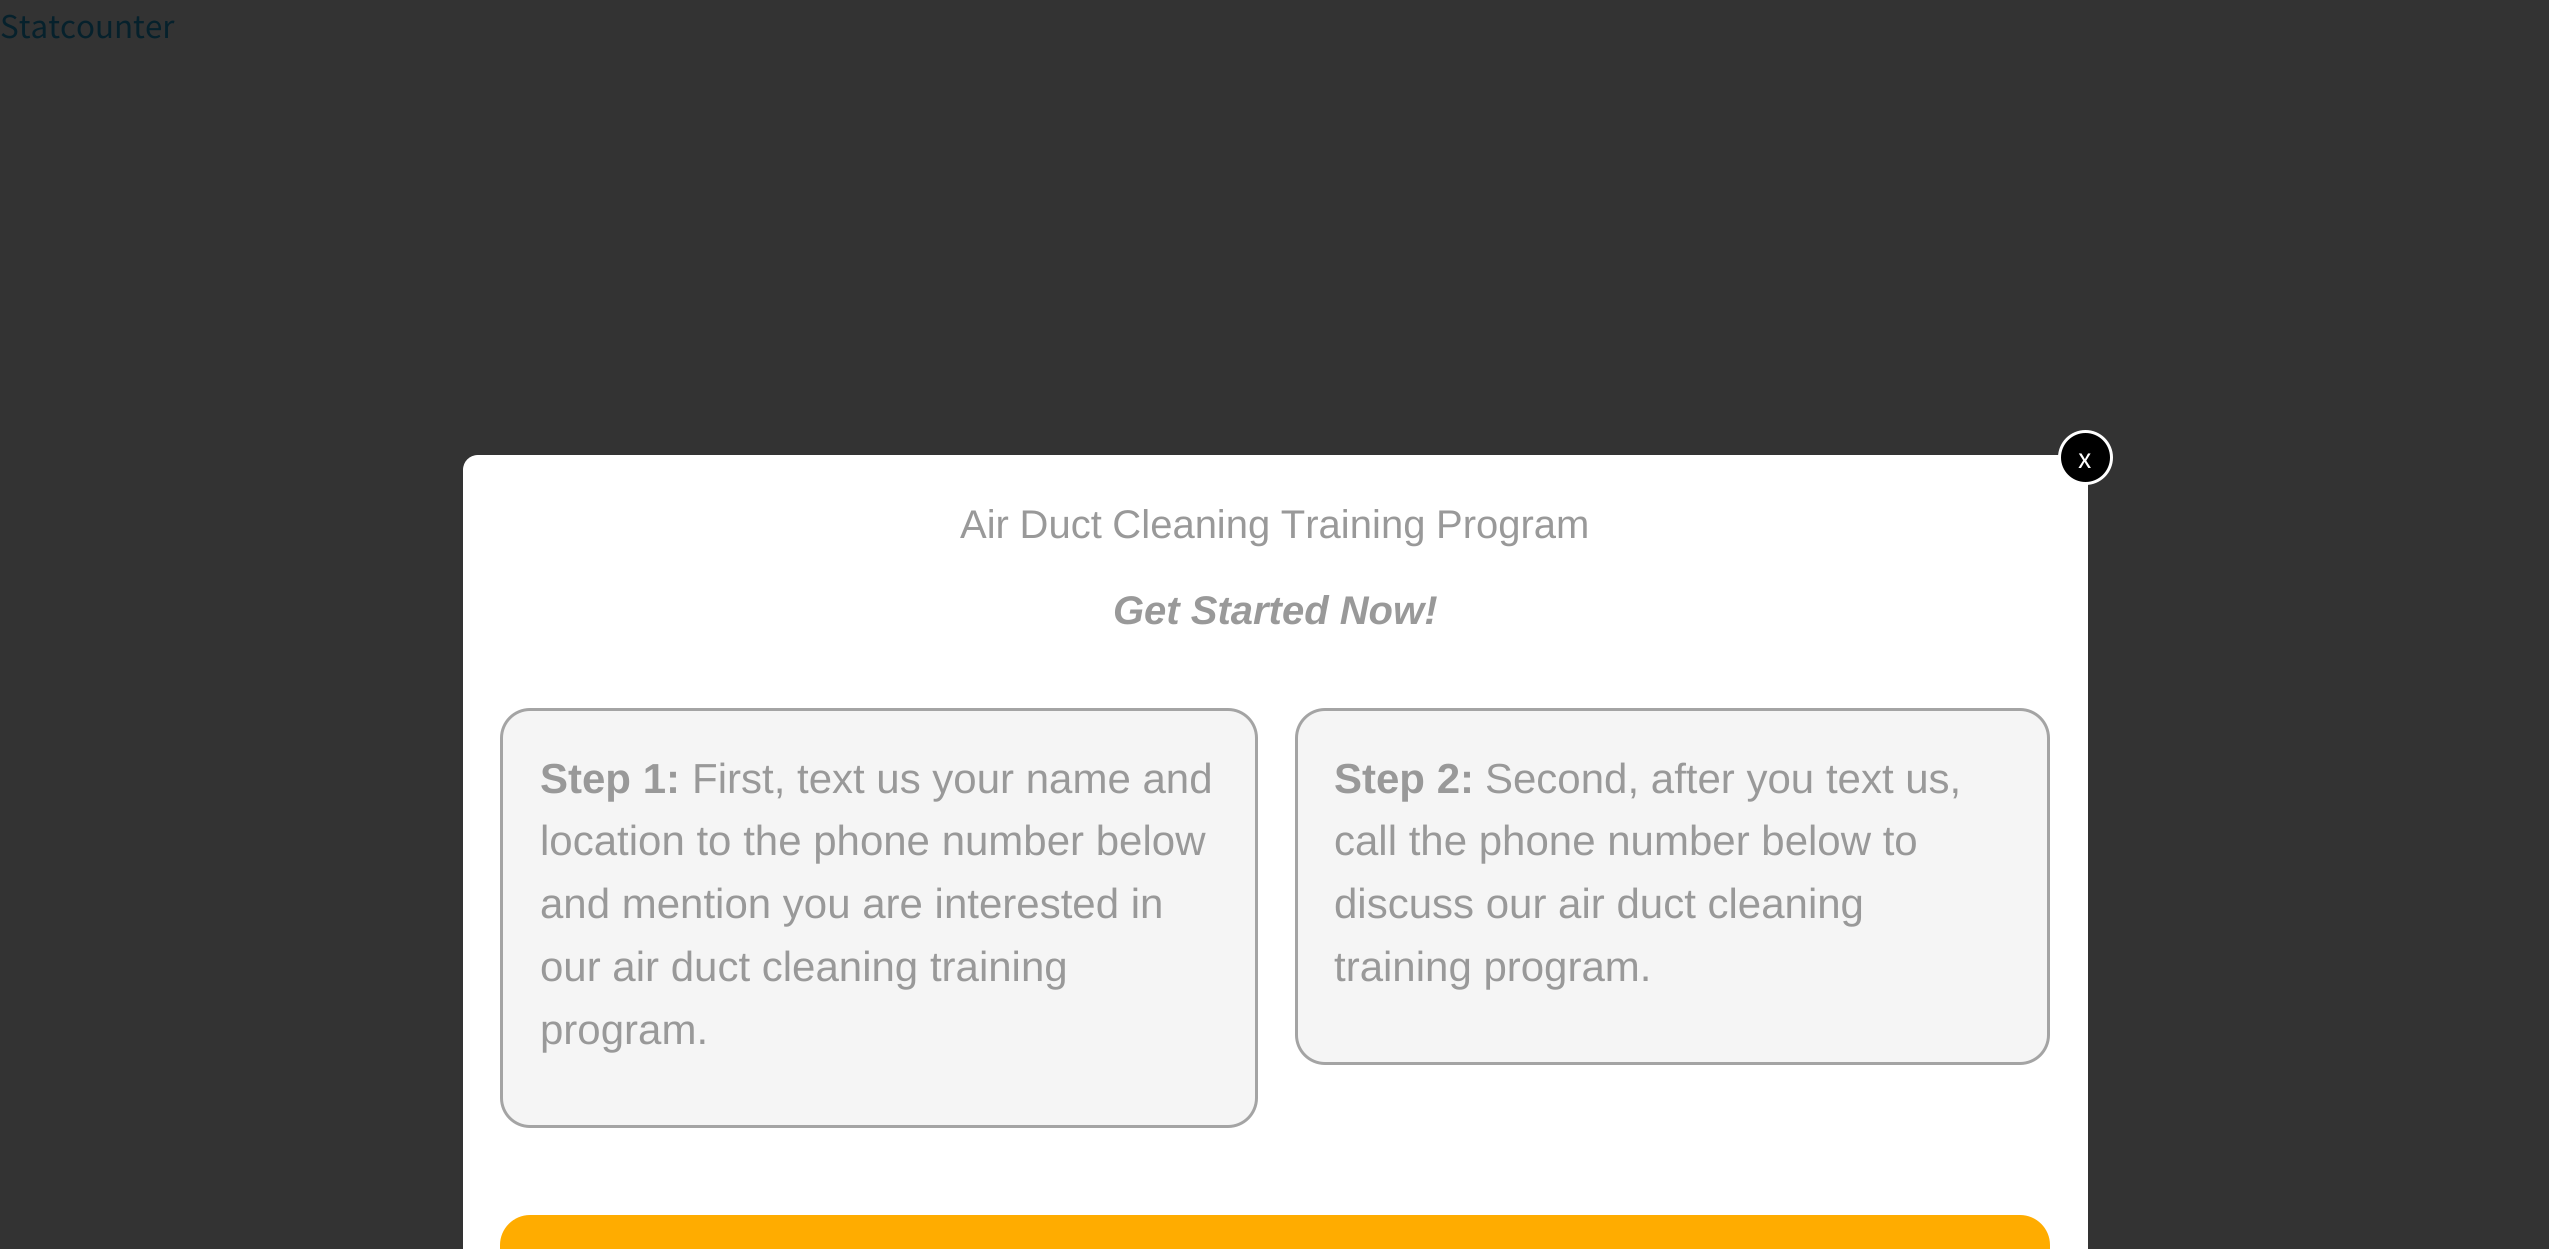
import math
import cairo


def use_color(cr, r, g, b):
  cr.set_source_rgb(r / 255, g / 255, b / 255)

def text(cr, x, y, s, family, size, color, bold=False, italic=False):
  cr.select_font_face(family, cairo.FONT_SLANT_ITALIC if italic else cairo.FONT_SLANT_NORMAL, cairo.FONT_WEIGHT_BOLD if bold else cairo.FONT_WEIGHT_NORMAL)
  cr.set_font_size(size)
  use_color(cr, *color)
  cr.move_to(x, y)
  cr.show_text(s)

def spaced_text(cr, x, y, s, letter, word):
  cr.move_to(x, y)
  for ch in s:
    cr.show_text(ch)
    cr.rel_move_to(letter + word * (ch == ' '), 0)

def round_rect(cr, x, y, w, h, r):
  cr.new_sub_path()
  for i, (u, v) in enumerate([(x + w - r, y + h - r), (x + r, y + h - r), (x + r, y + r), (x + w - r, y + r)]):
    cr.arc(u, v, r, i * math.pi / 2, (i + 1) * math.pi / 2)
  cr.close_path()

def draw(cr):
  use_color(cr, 51, 51, 51)
  cr.paint()
  use_color(cr, 255, 255, 255)
  cr.new_path()
  cr.move_to(478, 455)
  cr.line_to(2073, 455)
  cr.curve_to(2081.5, 455, 2088, 461.5, 2088, 470)
  cr.line_to(2088, 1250)
  cr.line_to(463, 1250)
  cr.line_to(463, 470)
  cr.curve_to(463, 461.5, 469.5, 455, 478, 455)
  cr.close_path()
  cr.fill()
  use_color(cr, 0, 0, 0)
  cr.arc(2085.5, 457.5, 26, 0, 2 * math.pi)
  cr.fill_preserve()
  use_color(cr, 255, 255, 255)
  cr.set_line_width(3)
  cr.stroke()
  use_color(cr, 245, 245, 245)
  round_rect(cr, 501.5, 709.5, 755, 417, 28.5)
  cr.fill_preserve()
  use_color(cr, 164, 164, 164)
  cr.stroke()
  use_color(cr, 245, 245, 245)
  round_rect(cr, 1296.5, 709.5, 752, 354, 28.5)
  cr.fill_preserve()
  use_color(cr, 164, 164, 164)
  cr.stroke()
  use_color(cr, 255, 172, 0)
  cr.new_path()
  cr.move_to(530, 1215)
  cr.line_to(2020, 1215)
  cr.curve_to(2036.5, 1215, 2050, 1228.5, 2050, 1245)
  cr.line_to(2050, 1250)
  cr.line_to(500, 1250)
  cr.line_to(500, 1245)
  cr.curve_to(500, 1228.5, 513.5, 1215, 530, 1215)
  cr.close_path()
  cr.fill()
  text(cr, 0, 38, "Statcounter", "Source Sans Pro", 35, (6, 33, 44))
  text(cr, 2078, 468, "x", "Source Sans Pro", 30, (255, 255, 255))
  cr.select_font_face("Liberation Sans")
  cr.set_font_size(40)
  use_color(cr, 153, 153, 153)
  spaced_text(cr, 960, 538, "Air Duct Cleaning Training Program", 0, -0.5)
  text(cr, 1113, 624, "Get Started Now!", "Liberation Sans", 40, (153, 153, 153), bold=True, italic=True)
  text(cr, 540, 793, "Step 1:", "Liberation Sans", 42, (153, 153, 153), bold=True)
  text(cr, 692, 793, "First, text us your name and", "Liberation Sans", 42, (153, 153, 153))
  text(cr, 540, 855, "location to the phone number below", "Liberation Sans", 42, (153, 153, 153))
  text(cr, 540, 918, "and mention you are interested in", "Liberation Sans", 42, (153, 153, 153))
  text(cr, 540, 981, "our air duct cleaning training", "Liberation Sans", 42, (153, 153, 153))
  text(cr, 540, 1044, "program.", "Liberation Sans", 42, (153, 153, 153))
  text(cr, 1334, 793, "Step 2:", "Liberation Sans", 42, (153, 153, 153), bold=True)
  text(cr, 1485, 793, "Second, after you text us,", "Liberation Sans", 42, (153, 153, 153))
  text(cr, 1334, 855, "call the phone number below to", "Liberation Sans", 42, (153, 153, 153))
  text(cr, 1334, 918, "discuss our air duct cleaning", "Liberation Sans", 42, (153, 153, 153))
  text(cr, 1334, 981, "training program.", "Liberation Sans", 42, (153, 153, 153))


surface = cairo.ImageSurface(cairo.FORMAT_RGB24, 2549, 1249)
cr = cairo.Context(surface)
options = cairo.FontOptions()
options.set_hint_metrics(cairo.HINT_METRICS_OFF)
options.set_hint_style(cairo.HINT_STYLE_NONE)
cr.set_font_options(options)
cr.set_miter_limit(4)
draw(cr)
surface.write_to_png("out.png")
